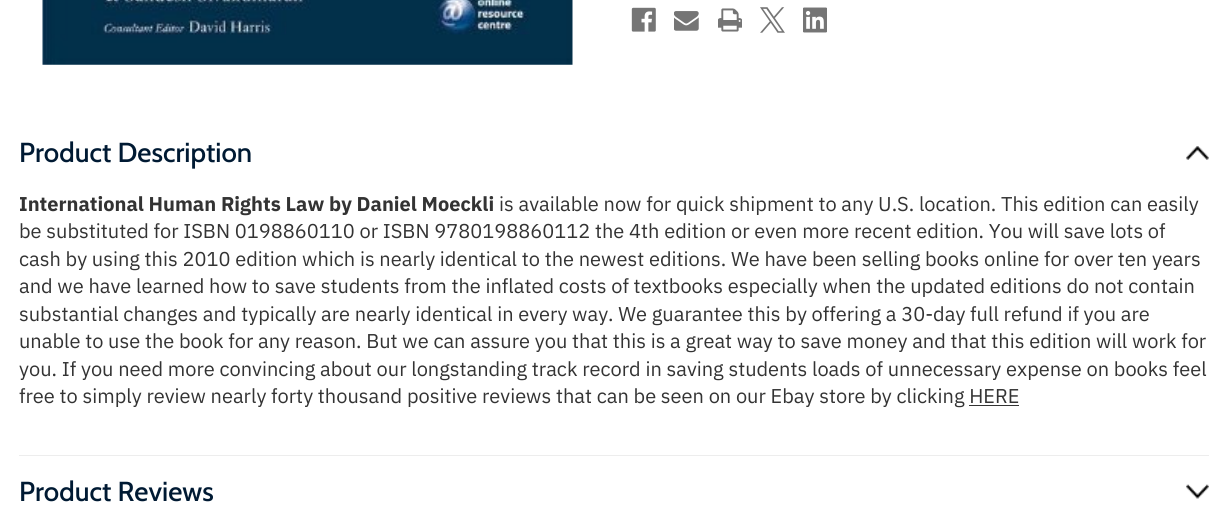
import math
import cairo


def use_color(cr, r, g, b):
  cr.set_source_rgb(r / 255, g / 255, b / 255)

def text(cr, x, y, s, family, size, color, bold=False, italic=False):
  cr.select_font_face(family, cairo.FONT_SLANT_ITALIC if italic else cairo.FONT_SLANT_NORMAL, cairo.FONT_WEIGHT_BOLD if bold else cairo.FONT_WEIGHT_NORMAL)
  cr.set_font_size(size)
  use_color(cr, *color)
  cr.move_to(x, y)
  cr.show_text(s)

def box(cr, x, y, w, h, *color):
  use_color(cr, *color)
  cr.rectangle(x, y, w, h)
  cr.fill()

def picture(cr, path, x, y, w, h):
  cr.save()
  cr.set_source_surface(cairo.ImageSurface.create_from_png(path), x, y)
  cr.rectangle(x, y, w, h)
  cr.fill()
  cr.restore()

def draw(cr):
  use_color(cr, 255, 255, 255)
  cr.paint()
  picture(cr, "img_01.png", 42, 0, 531, 65)
  picture(cr, "img_02.png", 631, 7, 25, 25)
  picture(cr, "img_03.png", 674, 11, 25, 20)
  picture(cr, "img_04.png", 718, 8, 24, 24)
  picture(cr, "img_05.png", 760, 7, 25, 26)
  picture(cr, "img_06.png", 803, 7, 24, 26)
  picture(cr, "img_07.png", 1186, 146, 23, 14)
  box(cr, 19, 455, 1190, 1, 237, 237, 237)
  box(cr, 969, 405, 50, 1, 51, 51, 51)
  picture(cr, "img_08.png", 1186, 484, 23, 15)
  text(cr, 19, 162, "Product Description", "Cabin Medium", 27.5, (0, 26, 51))
  text(cr, 19, 211, "International Human Rights Law by Daniel Moeckli", "IBM Plex Sans", 20, (51, 51, 51), bold=True)
  text(cr, 499, 211, "is available now for quick shipment to any U.S. location. This edition can easily", "IBM Plex Sans", 20, (51, 51, 51))
  text(cr, 19, 238, "be substituted for ISBN 0198860110 or ISBN 9780198860112 the 4th edition or even more recent edition. You will save lots of", "IBM Plex Sans", 20, (51, 51, 51))
  text(cr, 19, 266, "cash by using this 2010 edition which is nearly identical to the newest editions. We have been selling books online for over ten years", "IBM Plex Sans", 20, (51, 51, 51))
  text(cr, 19, 293, "and we have learned how to save students from the inflated costs of textbooks especially when the updated editions do not contain", "IBM Plex Sans", 20, (51, 51, 51))
  text(cr, 19, 321, "substantial changes and typically are nearly identical in every way. We guarantee this by offering a 30-day full refund if you are", "IBM Plex Sans", 20, (51, 51, 51))
  text(cr, 19, 348, "unable to use the book for any reason. But we can assure you that this is a great way to save money and that this edition will work for", "IBM Plex Sans", 20, (51, 51, 51))
  text(cr, 19, 376, "you. If you need more convincing about our longstanding track record in saving students loads of unnecessary expense on books feel", "IBM Plex Sans", 20, (51, 51, 51))
  text(cr, 19, 403, "free to simply review nearly forty thousand positive reviews that can be seen on our Ebay store by clicking HERE", "IBM Plex Sans", 20, (51, 51, 51))
  text(cr, 19, 501, "Product Reviews", "Cabin Medium", 27.5, (0, 26, 51))


surface = cairo.ImageSurface(cairo.FORMAT_RGB24, 1227, 522)
cr = cairo.Context(surface)
options = cairo.FontOptions()
options.set_hint_metrics(cairo.HINT_METRICS_OFF)
options.set_hint_style(cairo.HINT_STYLE_NONE)
cr.set_font_options(options)
cr.set_miter_limit(4)
draw(cr)
surface.write_to_png("out.png")
